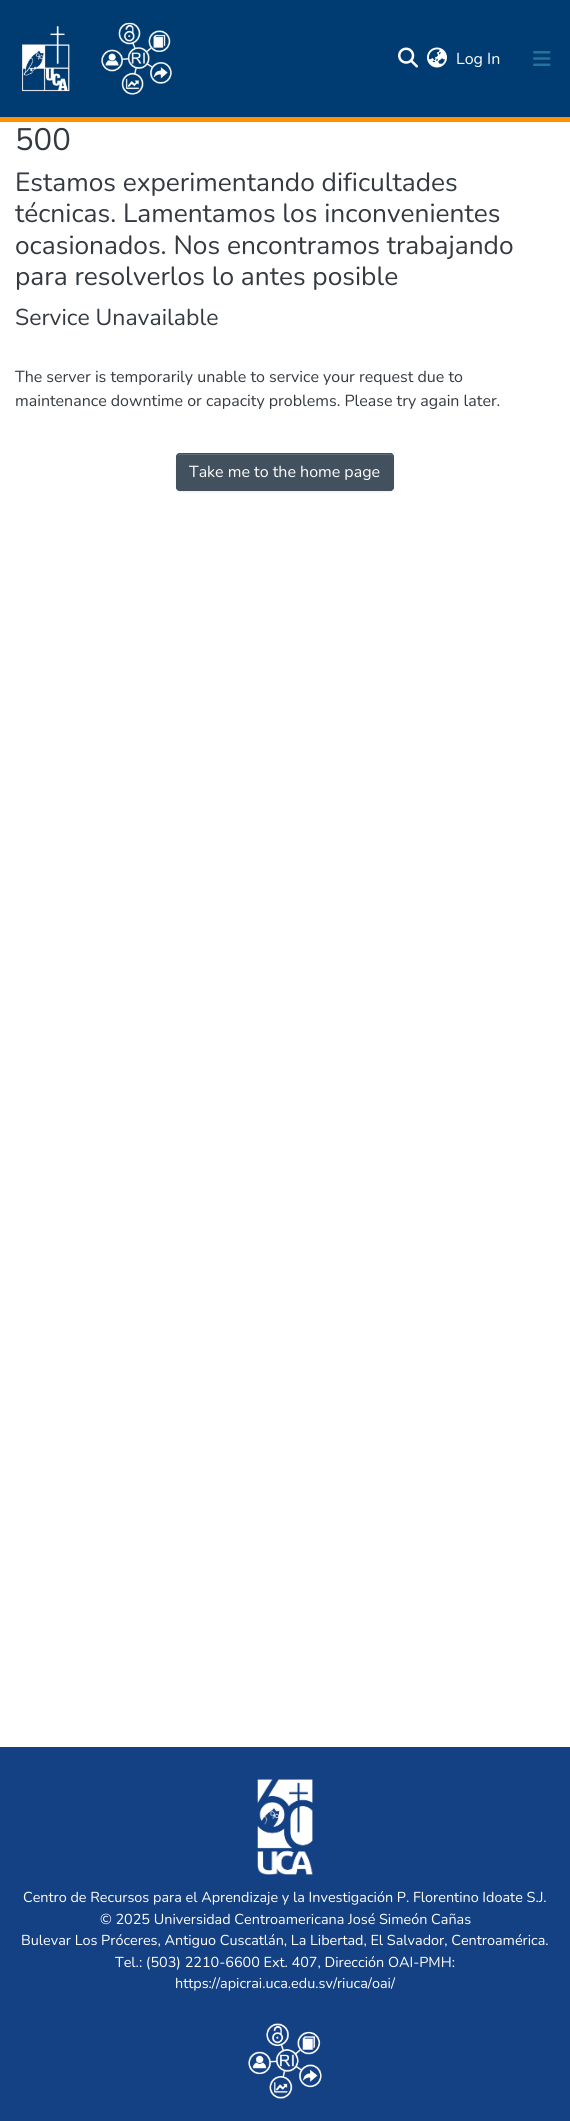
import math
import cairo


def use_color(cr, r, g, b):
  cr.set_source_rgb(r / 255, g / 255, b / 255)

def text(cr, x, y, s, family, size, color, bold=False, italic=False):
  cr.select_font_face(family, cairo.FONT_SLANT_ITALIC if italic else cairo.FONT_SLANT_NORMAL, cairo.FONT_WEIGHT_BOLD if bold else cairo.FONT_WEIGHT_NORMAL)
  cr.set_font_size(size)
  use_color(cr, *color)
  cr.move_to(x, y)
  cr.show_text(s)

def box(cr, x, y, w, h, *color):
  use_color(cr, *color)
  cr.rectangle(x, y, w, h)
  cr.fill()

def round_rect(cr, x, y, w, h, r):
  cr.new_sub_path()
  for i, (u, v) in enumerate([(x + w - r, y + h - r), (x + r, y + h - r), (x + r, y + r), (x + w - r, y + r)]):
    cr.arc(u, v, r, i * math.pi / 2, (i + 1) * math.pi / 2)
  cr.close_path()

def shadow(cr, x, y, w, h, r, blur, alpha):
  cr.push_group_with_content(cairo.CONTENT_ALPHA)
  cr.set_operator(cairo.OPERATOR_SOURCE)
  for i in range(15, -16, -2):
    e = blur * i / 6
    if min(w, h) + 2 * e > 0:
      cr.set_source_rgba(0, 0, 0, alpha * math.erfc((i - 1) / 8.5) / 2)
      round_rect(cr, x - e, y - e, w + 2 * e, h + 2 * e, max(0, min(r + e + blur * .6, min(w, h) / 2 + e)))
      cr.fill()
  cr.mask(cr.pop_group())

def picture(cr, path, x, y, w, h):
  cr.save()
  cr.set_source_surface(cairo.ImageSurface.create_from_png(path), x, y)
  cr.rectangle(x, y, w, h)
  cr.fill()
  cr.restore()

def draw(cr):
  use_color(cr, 255, 255, 255)
  cr.paint()
  box(cr, 0, 0, 570, 117, 0, 60, 113)
  box(cr, 0, 117, 570, 5, 255, 144, 0)
  picture(cr, "img_01.png", 22, 26, 48, 66)
  picture(cr, "img_02.png", 101, 22, 71, 73)
  picture(cr, "img_03.png", 398, 47, 20, 21)
  picture(cr, "img_04.png", 427, 47, 20, 21)
  picture(cr, "img_05.png", 533, 51, 18, 15)
  use_color(cr, 0, 0, 0)
  shadow(cr, 176, 454, 218, 38, 4, 0.5, 0.07)
  use_color(cr, 67, 81, 95)
  round_rect(cr, 176, 453, 218, 38, 4)
  cr.fill()
  use_color(cr, 95, 107, 119)
  cr.new_path()
  cr.move_to(180, 455)
  cr.line_to(390, 455)
  cr.curve_to(392, 455, 393, 456, 393, 458)
  cr.line_to(393, 457)
  cr.curve_to(393, 455, 392, 454, 390, 454)
  cr.line_to(180, 454)
  cr.curve_to(178, 454, 177, 455, 177, 457)
  cr.line_to(177, 458)
  cr.curve_to(177, 456, 178, 455, 180, 455)
  cr.close_path()
  cr.fill()
  round_rect(cr, 176.5, 453.5, 217, 37, 3.5)
  use_color(cr, 67, 81, 95)
  cr.set_line_width(1)
  cr.stroke()
  box(cr, 0, 1747, 570, 374, 20, 64, 132)
  picture(cr, "img_06.png", 257, 1779, 56, 96)
  picture(cr, "img_07.png", 248, 2023, 74, 76)
  text(cr, 456, 64, "Log In", "Nunito", 16, (255, 255, 255))
  text(cr, 15, 150, "500", "Nunito", 31, (52, 58, 64))
  text(cr, 15, 191, "Estamos experimentando dificultades", "Nunito", 26.3, (52, 58, 64))
  text(cr, 15, 222, "técnicas. Lamentamos los inconvenientes", "Nunito", 26.3, (52, 58, 64))
  text(cr, 15, 254, "ocasionados. Nos encontramos trabajando", "Nunito", 26.3, (52, 58, 64))
  text(cr, 15, 285, "para resolverlos lo antes posible", "Nunito", 26.3, (52, 58, 64))
  text(cr, 15, 325, "Service Unavailable", "Nunito", 23, (52, 58, 64))
  text(cr, 15, 382, "The server is temporarily unable to service your request due to", "Nunito", 16, (52, 58, 64))
  text(cr, 15, 406, "maintenance downtime or capacity problems. Please try again later.", "Nunito", 16, (52, 58, 64))
  text(cr, 189, 477, "Take me to the home page", "Nunito", 16, (255, 255, 255))
  text(cr, 23, 1902, "Centro de Recursos para el Aprendizaje y la Investigación P. Florentino Idoate S.J.", "Nunito", 14.4, (255, 255, 255))
  text(cr, 100, 1924, "© 2025 Universidad Centroamericana José Simeón Cañas", "Nunito", 14.4, (255, 255, 255))
  text(cr, 21, 1945, "Bulevar Los Próceres, Antiguo Cuscatlán, La Libertad, El Salvador, Centroamérica.", "Nunito", 14.4, (255, 255, 255))
  text(cr, 115, 1967, "Tel.: (503) 2210-6600 Ext. 407, Dirección OAI-PMH:", "Nunito", 14.4, (255, 255, 255))
  text(cr, 175, 1988, "https://apicrai.uca.edu.sv/riuca/oai/", "Nunito", 14.4, (255, 255, 255))


surface = cairo.ImageSurface(cairo.FORMAT_RGB24, 570, 2121)
cr = cairo.Context(surface)
options = cairo.FontOptions()
options.set_hint_metrics(cairo.HINT_METRICS_OFF)
options.set_hint_style(cairo.HINT_STYLE_NONE)
cr.set_font_options(options)
cr.set_miter_limit(4)
draw(cr)
surface.write_to_png("out.png")
